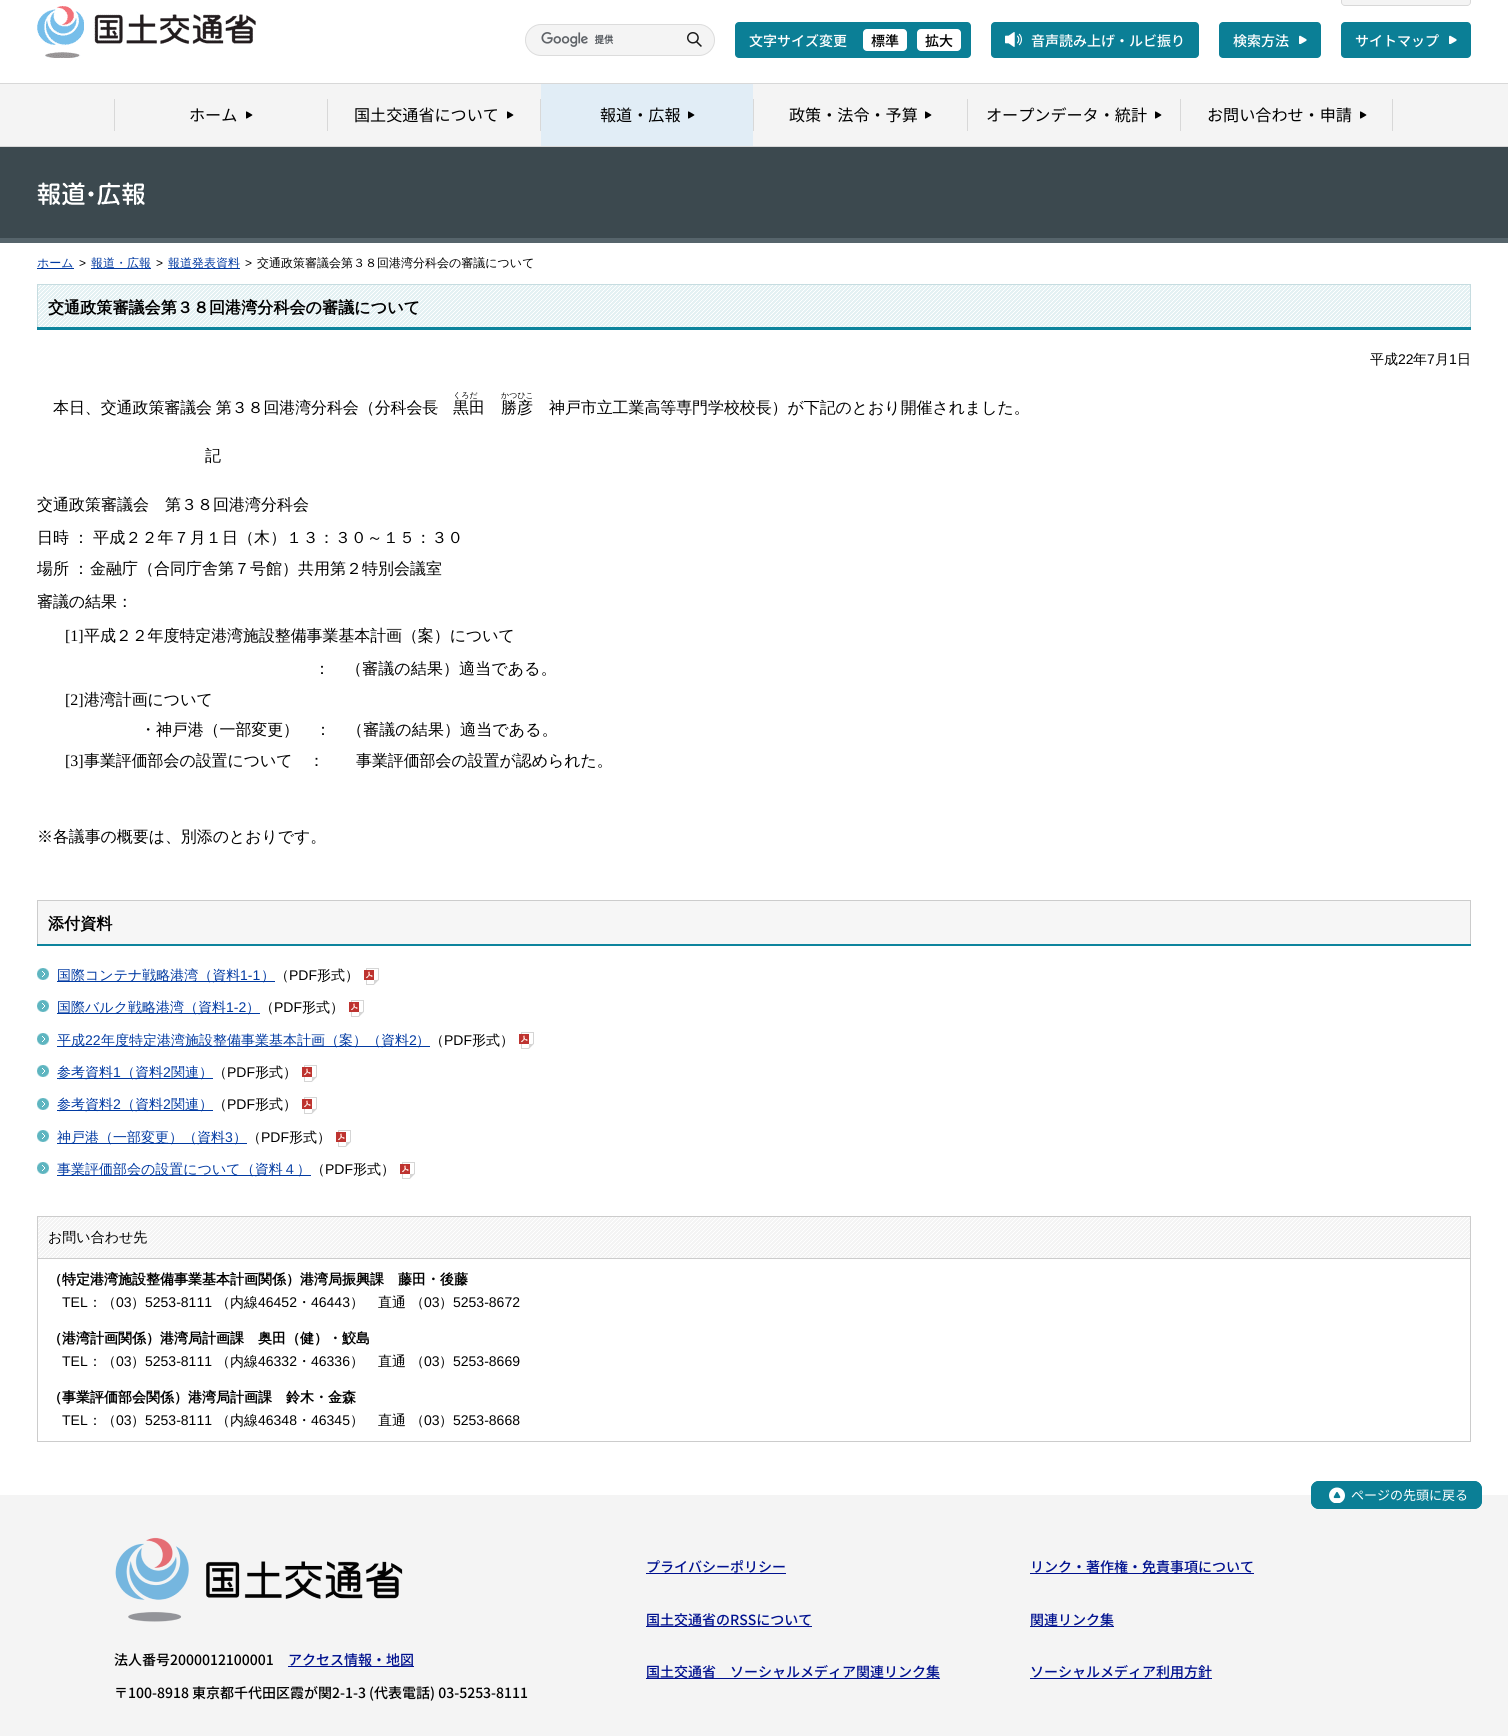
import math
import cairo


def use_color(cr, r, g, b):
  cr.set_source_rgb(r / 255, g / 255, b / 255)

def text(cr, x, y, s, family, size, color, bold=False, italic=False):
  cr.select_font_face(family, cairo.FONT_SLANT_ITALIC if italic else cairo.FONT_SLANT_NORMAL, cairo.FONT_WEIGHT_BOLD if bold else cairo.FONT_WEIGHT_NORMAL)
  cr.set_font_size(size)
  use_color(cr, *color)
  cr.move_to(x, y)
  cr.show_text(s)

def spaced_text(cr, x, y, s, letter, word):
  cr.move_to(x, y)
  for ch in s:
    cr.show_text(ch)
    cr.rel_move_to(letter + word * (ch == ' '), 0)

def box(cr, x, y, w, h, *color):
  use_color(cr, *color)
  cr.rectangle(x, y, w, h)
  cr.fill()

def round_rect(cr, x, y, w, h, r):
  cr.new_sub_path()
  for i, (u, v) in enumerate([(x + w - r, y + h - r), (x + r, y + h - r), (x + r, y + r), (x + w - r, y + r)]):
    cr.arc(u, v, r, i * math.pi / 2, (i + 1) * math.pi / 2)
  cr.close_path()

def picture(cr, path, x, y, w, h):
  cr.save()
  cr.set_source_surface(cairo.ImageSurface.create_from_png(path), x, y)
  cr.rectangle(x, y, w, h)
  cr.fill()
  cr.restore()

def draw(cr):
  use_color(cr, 255, 255, 255)
  cr.paint()
  picture(cr, "img_01.png", 37, 6, 219, 52)
  use_color(cr, 244, 244, 244)
  cr.new_path()
  cr.move_to(1341, -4)
  cr.line_to(1471, -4)
  cr.line_to(1471, 2)
  cr.curve_to(1471, 4, 1469, 6, 1467, 6)
  cr.line_to(1345, 6)
  cr.curve_to(1343, 6, 1341, 4, 1341, 2)
  cr.close_path()
  cr.fill()
  use_color(cr, 216, 216, 216)
  cr.set_fill_rule(cairo.FILL_RULE_EVEN_ODD)
  cr.new_path()
  cr.move_to(1341, -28)
  cr.line_to(1471, -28)
  cr.line_to(1471, 2)
  cr.curve_to(1471, 4, 1469, 6, 1467, 6)
  cr.line_to(1345, 6)
  cr.curve_to(1343, 6, 1341, 4, 1341, 2)
  cr.close_path()
  cr.move_to(1342, -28)
  cr.line_to(1470, -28)
  cr.line_to(1470, 2)
  cr.curve_to(1470, 4, 1469, 5, 1467, 5)
  cr.line_to(1345, 5)
  cr.curve_to(1343, 5, 1342, 4, 1342, 2)
  cr.close_path()
  cr.fill()
  use_color(cr, 244, 244, 244)
  round_rect(cr, 525.5, 24.5, 189, 31, 15.5)
  cr.fill_preserve()
  use_color(cr, 220, 220, 220)
  cr.set_line_width(1)
  cr.stroke()
  picture(cr, "img_02.png", 541, 32, 73, 15)
  picture(cr, "img_03.png", 687, 32, 15, 15)
  use_color(cr, 11, 127, 150)
  round_rect(cr, 735, 22, 236, 36, 4)
  cr.fill()
  use_color(cr, 255, 255, 255)
  round_rect(cr, 863, 29, 44, 22, 4)
  cr.fill()
  round_rect(cr, 917, 29, 44, 22, 4)
  cr.fill()
  use_color(cr, 11, 127, 150)
  round_rect(cr, 991, 22, 208, 36, 4)
  cr.fill()
  picture(cr, "img_04.png", 1005, 32, 17, 15)
  round_rect(cr, 1219, 22, 102, 36, 4)
  cr.fill()
  picture(cr, "img_05.png", 1299, 35, 8, 9)
  round_rect(cr, 1341, 22, 130, 36, 4)
  cr.fill()
  picture(cr, "img_05.png", 1449, 35, 8, 9)
  box(cr, 0, 84, 1508, 62, 244, 244, 244)
  box(cr, 0, 83, 1508, 1, 216, 216, 216)
  box(cr, 0, 146, 1508, 1, 216, 216, 216)
  box(cr, 114, 99, 1, 32, 216, 216, 216)
  picture(cr, "img_06.png", 246, 111, 7, 8)
  box(cr, 327, 99, 1, 32, 216, 216, 216)
  picture(cr, "img_06.png", 507, 111, 7, 8)
  box(cr, 541, 84, 212, 62, 225, 237, 246)
  box(cr, 540, 99, 1, 32, 216, 216, 216)
  picture(cr, "img_07.png", 688, 111, 7, 8)
  box(cr, 753, 99, 1, 32, 216, 216, 216)
  picture(cr, "img_06.png", 925, 111, 7, 8)
  box(cr, 967, 99, 1, 32, 216, 216, 216)
  picture(cr, "img_06.png", 1155, 111, 7, 8)
  box(cr, 1180, 99, 1, 32, 216, 216, 216)
  picture(cr, "img_06.png", 1360, 111, 7, 8)
  box(cr, 1392, 99, 1, 32, 216, 216, 216)
  box(cr, 0, 147, 1508, 91, 60, 73, 79)
  box(cr, 0, 238, 1508, 5, 86, 100, 107)
  picture(cr, "img_08.png", 37, 182, 108, 23)
  box(cr, 37, 268, 37, 1, 1, 58, 162)
  box(cr, 91, 268, 60, 1, 1, 58, 162)
  box(cr, 168, 268, 72, 1, 1, 58, 162)
  box(cr, 37, 327, 1434, 3, 13, 132, 157)
  picture(cr, "img_09.png", 38, 285, 1432, 42)
  box(cr, 37, 284, 1434, 1, 198, 220, 224)
  box(cr, 1470, 284, 1, 43, 198, 220, 224)
  box(cr, 37, 284, 1, 43, 198, 220, 224)
  box(cr, 37, 944, 1434, 2, 13, 132, 157)
  box(cr, 38, 901, 1432, 43, 246, 246, 246)
  box(cr, 37, 900, 1434, 1, 204, 204, 204)
  box(cr, 1470, 900, 1, 44, 204, 204, 204)
  box(cr, 37, 900, 1, 44, 204, 204, 204)
  picture(cr, "img_10.png", 37, 968, 12, 12)
  box(cr, 57, 981, 218, 1, 1, 58, 162)
  picture(cr, "img_11.png", 364, 968, 15, 17)
  picture(cr, "img_10.png", 37, 1000, 12, 12)
  box(cr, 57, 1013, 203, 1, 1, 58, 162)
  picture(cr, "img_11.png", 349, 1000, 15, 17)
  picture(cr, "img_10.png", 37, 1033, 12, 12)
  box(cr, 57, 1046, 373, 1, 1, 58, 162)
  picture(cr, "img_11.png", 519, 1032, 15, 17)
  picture(cr, "img_10.png", 37, 1065, 12, 12)
  box(cr, 57, 1078, 156, 1, 1, 58, 162)
  picture(cr, "img_11.png", 302, 1065, 15, 17)
  picture(cr, "img_10.png", 37, 1098, 12, 12)
  box(cr, 57, 1110, 156, 1, 1, 58, 162)
  picture(cr, "img_11.png", 302, 1097, 15, 17)
  picture(cr, "img_10.png", 37, 1130, 12, 12)
  box(cr, 57, 1143, 190, 1, 1, 58, 162)
  picture(cr, "img_11.png", 336, 1130, 15, 17)
  picture(cr, "img_10.png", 37, 1162, 12, 12)
  box(cr, 57, 1175, 254, 1, 1, 58, 162)
  picture(cr, "img_11.png", 400, 1162, 15, 17)
  cr.rectangle(37.5, 1216.5, 1433, 225)
  use_color(cr, 204, 204, 204)
  cr.stroke()
  picture(cr, "img_12.png", 38, 1217, 1432, 41)
  box(cr, 38, 1258, 1432, 1, 204, 204, 204)
  box(cr, 0, 1495, 1508, 241, 244, 244, 244)
  use_color(cr, 11, 127, 150)
  round_rect(cr, 1311, 1481, 171, 28, 8)
  cr.fill()
  picture(cr, "img_13.png", 1329, 1487, 16, 16)
  round_rect(cr, 1311.5, 1481.5, 170, 27, 7.5)
  cr.stroke()
  picture(cr, "img_14.png", 115, 1537, 288, 85)
  box(cr, 288, 1666, 126, 1, 0, 17, 143)
  box(cr, 646, 1573, 140, 1, 0, 17, 143)
  box(cr, 1030, 1573, 224, 1, 0, 17, 143)
  box(cr, 646, 1626, 166, 1, 0, 17, 143)
  box(cr, 1030, 1626, 84, 1, 0, 17, 143)
  box(cr, 646, 1678, 294, 1, 0, 17, 143)
  box(cr, 1030, 1678, 182, 1, 0, 17, 143)
  text(cr, 749, 46, "文字サイズ変更", "Noto Sans JP Medium", 14, (255, 255, 255))
  text(cr, 871, 46, "標準", "Noto Sans JP Medium", 14, (0, 0, 0))
  text(cr, 925, 46, "拡大", "Noto Sans JP Medium", 14, (0, 0, 0))
  text(cr, 1031, 46, "音声読み上げ・ルビ振り", "Noto Sans JP Medium", 14, (255, 255, 255))
  text(cr, 1233, 46, "検索方法", "Noto Sans JP Medium", 14, (255, 255, 255))
  text(cr, 1355, 46, "サイトマップ", "Noto Sans JP Medium", 14, (255, 255, 255))
  text(cr, 189, 121, "ホーム", "Noto Sans JP", 16.1, (0, 0, 0))
  text(cr, 354, 121, "国土交通省について", "Noto Sans JP", 16.1, (0, 0, 0))
  text(cr, 600, 121, "報道・広報", "Noto Sans JP", 16.1, (0, 0, 0))
  text(cr, 789, 121, "政策・法令・予算", "Noto Sans JP", 16.1, (0, 0, 0))
  text(cr, 986, 121, "オープンデータ・統計", "Noto Sans JP", 16.1, (0, 0, 0))
  text(cr, 1207, 121, "お問い合わせ・申請", "Noto Sans JP", 16.1, (0, 0, 0))
  text(cr, 37, 267, "ホーム", "WenQuanYi Zen Hei Medium", 12, (1, 58, 162))
  text(cr, 79, 267, ">", "Liberation Sans", 12, (0, 0, 0))
  text(cr, 91, 267, "報道・広報", "WenQuanYi Zen Hei Medium", 12, (1, 58, 162))
  text(cr, 156, 267, ">", "Liberation Sans", 12, (0, 0, 0))
  text(cr, 168, 267, "報道発表資料", "WenQuanYi Zen Hei Medium", 12, (1, 58, 162))
  text(cr, 245, 267, ">", "Liberation Sans", 12, (0, 0, 0))
  text(cr, 257, 267, "交通政策審議会第３８回港湾分科会の審議について", "WenQuanYi Zen Hei Medium", 12, (0, 0, 0))
  text(cr, 48, 313, "交通政策審議会第３８回港湾分科会の審議について", "WenQuanYi Zen Hei", 16.1, (0, 0, 0), bold=True)
  text(cr, 1370, 364, "平成", "WenQuanYi Zen Hei Medium", 14, (0, 0, 0))
  text(cr, 1398, 364, "22", "Liberation Sans", 14, (0, 0, 0))
  text(cr, 1413, 364, "年", "WenQuanYi Zen Hei Medium", 14, (0, 0, 0))
  text(cr, 1427, 364, "7", "Liberation Sans", 14, (0, 0, 0))
  text(cr, 1435, 364, "月", "WenQuanYi Zen Hei Medium", 14, (0, 0, 0))
  text(cr, 1449, 364, "1", "Liberation Sans", 14, (0, 0, 0))
  text(cr, 1457, 364, "日", "WenQuanYi Zen Hei Medium", 14, (0, 0, 0))
  cr.set_font_size(16)
  spaced_text(cr, 53, 413, "本日、交通政策審議会 第３８回港湾分科会（分科会長", -0.1, -1)
  text(cr, 453, 398, "くろだ", "WenQuanYi Zen Hei Medium", 8, (0, 0, 0))
  cr.set_font_size(16)
  spaced_text(cr, 453, 413, "黒田", -0.1, 0)
  text(cr, 501, 398, "かつひこ", "WenQuanYi Zen Hei Medium", 8, (0, 0, 0))
  cr.set_font_size(16)
  spaced_text(cr, 501, 413, "勝彦", -0.1, 0)
  spaced_text(cr, 549, 413, "神戸市立工業高等専門学校校長）が下記のとおり開催されました。", -0.1, 0)
  spaced_text(cr, 205, 461, "記", 0.1, 0)
  text(cr, 37, 510, "交通政策審議会　第３８回港湾分科会", "WenQuanYi Zen Hei Medium", 16, (0, 0, 0))
  spaced_text(cr, 37, 543, "日時 ： 平成２２年７月１日（木）１３：３０～１５：３０", 0.1, -1)
  spaced_text(cr, 37, 574, "場所 ：", 0.1, -1)
  text(cr, 90, 574, "金融庁（合同庁舎第７号館）共用第２特別会議室", "WenQuanYi Zen Hei Medium", 16, (0, 0, 0))
  spaced_text(cr, 37, 607, "審議の結果：", -0.1, 0)
  cr.select_font_face("Liberation Serif")
  spaced_text(cr, 65, 641, "[1]", -0.1, 0)
  cr.select_font_face("WenQuanYi Zen Hei Medium")
  spaced_text(cr, 84, 641, "平成２２年度特定港湾施設整備事業基本計画（案）について", -0.1, 0)
  spaced_text(cr, 314, 674, "：", -0.1, 0)
  spaced_text(cr, 346, 674, "（審議の結果）適当である。", 0.1, 0)
  cr.select_font_face("Liberation Serif")
  spaced_text(cr, 65, 705, "[2]", -0.1, 0)
  cr.select_font_face("WenQuanYi Zen Hei Medium")
  spaced_text(cr, 84, 705, "港湾計画について", -0.1, 0)
  spaced_text(cr, 140, 735, "・神戸港（一部変更）　：", -0.1, 0)
  spaced_text(cr, 347, 735, "（審議の結果）適当である。", 0.1, 0)
  cr.select_font_face("Liberation Serif")
  spaced_text(cr, 65, 766, "[3]", -0.1, 0)
  cr.select_font_face("WenQuanYi Zen Hei Medium")
  spaced_text(cr, 84, 766, "事業評価部会の設置について　：", -0.1, 0)
  spaced_text(cr, 356, 766, "事業評価部会の設置が認められた。", -0.1, 0)
  spaced_text(cr, 37, 842, "※各議事の概要は、別添のとおりです。", -0.1, 0)
  text(cr, 48, 929, "添付資料", "WenQuanYi Zen Hei", 16.1, (0, 0, 0), bold=True)
  text(cr, 57, 980, "国際コンテナ戦略港湾（資料", "WenQuanYi Zen Hei Medium", 14, (1, 58, 162))
  text(cr, 240, 980, "1-1", "Liberation Sans", 14, (1, 58, 162))
  text(cr, 261, 980, "）", "WenQuanYi Zen Hei Medium", 14, (1, 58, 162))
  text(cr, 275, 980, "（", "WenQuanYi Zen Hei Medium", 14, (0, 0, 0))
  text(cr, 289, 980, "PDF", "Liberation Sans", 14, (0, 0, 0))
  text(cr, 317, 980, "形式）", "WenQuanYi Zen Hei Medium", 14, (0, 0, 0))
  text(cr, 57, 1012, "国際バルク戦略港湾（資料", "WenQuanYi Zen Hei Medium", 14, (1, 58, 162))
  text(cr, 226, 1012, "1-2", "Liberation Sans", 14, (1, 58, 162))
  text(cr, 246, 1012, "）", "WenQuanYi Zen Hei Medium", 14, (1, 58, 162))
  text(cr, 260, 1012, "（", "WenQuanYi Zen Hei Medium", 14, (0, 0, 0))
  text(cr, 274, 1012, "PDF", "Liberation Sans", 14, (0, 0, 0))
  text(cr, 302, 1012, "形式）", "WenQuanYi Zen Hei Medium", 14, (0, 0, 0))
  text(cr, 57, 1045, "平成", "WenQuanYi Zen Hei Medium", 14, (1, 58, 162))
  text(cr, 85, 1045, "22", "Liberation Sans", 14, (1, 58, 162))
  text(cr, 101, 1045, "年度特定港湾施設整備事業基本計画（案）（資料", "WenQuanYi Zen Hei Medium", 14, (1, 58, 162))
  text(cr, 409, 1045, "2", "Liberation Sans", 14, (1, 58, 162))
  text(cr, 416, 1045, "）", "WenQuanYi Zen Hei Medium", 14, (1, 58, 162))
  text(cr, 430, 1045, "（", "WenQuanYi Zen Hei Medium", 14, (0, 0, 0))
  text(cr, 444, 1045, "PDF", "Liberation Sans", 14, (0, 0, 0))
  text(cr, 472, 1045, "形式）", "WenQuanYi Zen Hei Medium", 14, (0, 0, 0))
  text(cr, 57, 1077, "参考資料", "WenQuanYi Zen Hei Medium", 14, (1, 58, 162))
  text(cr, 113, 1077, "1", "Liberation Sans", 14, (1, 58, 162))
  text(cr, 121, 1077, "（資料", "WenQuanYi Zen Hei Medium", 14, (1, 58, 162))
  text(cr, 163, 1077, "2", "Liberation Sans", 14, (1, 58, 162))
  text(cr, 171, 1077, "関連）", "WenQuanYi Zen Hei Medium", 14, (1, 58, 162))
  text(cr, 213, 1077, "（", "WenQuanYi Zen Hei Medium", 14, (0, 0, 0))
  text(cr, 227, 1077, "PDF", "Liberation Sans", 14, (0, 0, 0))
  text(cr, 255, 1077, "形式）", "WenQuanYi Zen Hei Medium", 14, (0, 0, 0))
  text(cr, 57, 1109, "参考資料", "WenQuanYi Zen Hei Medium", 14, (1, 58, 162))
  text(cr, 113, 1109, "2", "Liberation Sans", 14, (1, 58, 162))
  text(cr, 121, 1109, "（資料", "WenQuanYi Zen Hei Medium", 14, (1, 58, 162))
  text(cr, 163, 1109, "2", "Liberation Sans", 14, (1, 58, 162))
  text(cr, 171, 1109, "関連）", "WenQuanYi Zen Hei Medium", 14, (1, 58, 162))
  text(cr, 213, 1109, "（", "WenQuanYi Zen Hei Medium", 14, (0, 0, 0))
  text(cr, 227, 1109, "PDF", "Liberation Sans", 14, (0, 0, 0))
  text(cr, 255, 1109, "形式）", "WenQuanYi Zen Hei Medium", 14, (0, 0, 0))
  text(cr, 57, 1142, "神戸港（一部変更）（資料", "WenQuanYi Zen Hei Medium", 14, (1, 58, 162))
  text(cr, 225, 1142, "3", "Liberation Sans", 14, (1, 58, 162))
  text(cr, 233, 1142, "）", "WenQuanYi Zen Hei Medium", 14, (1, 58, 162))
  text(cr, 247, 1142, "（", "WenQuanYi Zen Hei Medium", 14, (0, 0, 0))
  text(cr, 261, 1142, "PDF", "Liberation Sans", 14, (0, 0, 0))
  text(cr, 289, 1142, "形式）", "WenQuanYi Zen Hei Medium", 14, (0, 0, 0))
  text(cr, 57, 1174, "事業評価部会の設置について（資料４）", "WenQuanYi Zen Hei Medium", 14, (1, 58, 162))
  text(cr, 311, 1174, "（", "WenQuanYi Zen Hei Medium", 14, (0, 0, 0))
  text(cr, 325, 1174, "PDF", "Liberation Sans", 14, (0, 0, 0))
  text(cr, 353, 1174, "形式）", "WenQuanYi Zen Hei Medium", 14, (0, 0, 0))
  text(cr, 48, 1242, "お問い合わせ先", "WenQuanYi Zen Hei Medium", 14, (0, 0, 0))
  text(cr, 48, 1284, "（特定港湾施設整備事業基本計画関係）港湾局振興課　藤田・後藤", "WenQuanYi Zen Hei", 14, (0, 0, 0), bold=True)
  text(cr, 62, 1307, "TEL", "Liberation Sans", 14, (0, 0, 0))
  text(cr, 88, 1307, "：（", "WenQuanYi Zen Hei Medium", 14, (0, 0, 0))
  text(cr, 116, 1307, "03", "Liberation Sans", 14, (0, 0, 0))
  text(cr, 131, 1307, "）", "WenQuanYi Zen Hei Medium", 14, (0, 0, 0))
  text(cr, 145, 1307, "5253-8111", "Liberation Sans", 14, (0, 0, 0))
  text(cr, 216, 1307, "（内線", "WenQuanYi Zen Hei Medium", 14, (0, 0, 0))
  text(cr, 258, 1307, "46452", "Liberation Sans", 14, (0, 0, 0))
  text(cr, 297, 1307, "・", "WenQuanYi Zen Hei Medium", 14, (0, 0, 0))
  text(cr, 311, 1307, "46443", "Liberation Sans", 14, (0, 0, 0))
  text(cr, 350, 1307, "）　直通 （", "WenQuanYi Zen Hei Medium", 14, (0, 0, 0))
  text(cr, 424, 1307, "03", "Liberation Sans", 14, (0, 0, 0))
  text(cr, 439, 1307, "）", "WenQuanYi Zen Hei Medium", 14, (0, 0, 0))
  text(cr, 453, 1307, "5253-8672", "Liberation Sans", 14, (0, 0, 0))
  text(cr, 48, 1343, "（港湾計画関係）港湾局計画課　奥田（健）・鮫島", "WenQuanYi Zen Hei", 14, (0, 0, 0), bold=True)
  text(cr, 62, 1366, "TEL", "Liberation Sans", 14, (0, 0, 0))
  text(cr, 88, 1366, "：（", "WenQuanYi Zen Hei Medium", 14, (0, 0, 0))
  text(cr, 116, 1366, "03", "Liberation Sans", 14, (0, 0, 0))
  text(cr, 131, 1366, "）", "WenQuanYi Zen Hei Medium", 14, (0, 0, 0))
  text(cr, 145, 1366, "5253-8111", "Liberation Sans", 14, (0, 0, 0))
  text(cr, 216, 1366, "（内線", "WenQuanYi Zen Hei Medium", 14, (0, 0, 0))
  text(cr, 258, 1366, "46332", "Liberation Sans", 14, (0, 0, 0))
  text(cr, 297, 1366, "・", "WenQuanYi Zen Hei Medium", 14, (0, 0, 0))
  text(cr, 311, 1366, "46336", "Liberation Sans", 14, (0, 0, 0))
  text(cr, 350, 1366, "）　直通 （", "WenQuanYi Zen Hei Medium", 14, (0, 0, 0))
  text(cr, 424, 1366, "03", "Liberation Sans", 14, (0, 0, 0))
  text(cr, 439, 1366, "）", "WenQuanYi Zen Hei Medium", 14, (0, 0, 0))
  text(cr, 453, 1366, "5253-8669", "Liberation Sans", 14, (0, 0, 0))
  text(cr, 48, 1402, "（事業評価部会関係）港湾局計画課　鈴木・金森", "WenQuanYi Zen Hei", 14, (0, 0, 0), bold=True)
  text(cr, 62, 1425, "TEL", "Liberation Sans", 14, (0, 0, 0))
  text(cr, 88, 1425, "：（", "WenQuanYi Zen Hei Medium", 14, (0, 0, 0))
  text(cr, 116, 1425, "03", "Liberation Sans", 14, (0, 0, 0))
  text(cr, 131, 1425, "）", "WenQuanYi Zen Hei Medium", 14, (0, 0, 0))
  text(cr, 145, 1425, "5253-8111", "Liberation Sans", 14, (0, 0, 0))
  text(cr, 216, 1425, "（内線", "WenQuanYi Zen Hei Medium", 14, (0, 0, 0))
  text(cr, 258, 1425, "46348", "Liberation Sans", 14, (0, 0, 0))
  text(cr, 297, 1425, "・", "WenQuanYi Zen Hei Medium", 14, (0, 0, 0))
  text(cr, 311, 1425, "46345", "Liberation Sans", 14, (0, 0, 0))
  text(cr, 350, 1425, "）　直通 （", "WenQuanYi Zen Hei Medium", 14, (0, 0, 0))
  text(cr, 424, 1425, "03", "Liberation Sans", 14, (0, 0, 0))
  text(cr, 439, 1425, "）", "WenQuanYi Zen Hei Medium", 14, (0, 0, 0))
  text(cr, 453, 1425, "5253-8668", "Liberation Sans", 14, (0, 0, 0))
  text(cr, 1351, 1500, "ページの先頭に戻る", "Noto Sans JP", 13, (255, 255, 255))
  text(cr, 114, 1665, "法人番号2000012100001", "Noto Sans JP Medium", 14, (0, 0, 0))
  text(cr, 288, 1665, "アクセス情報・地図", "Noto Sans JP Medium", 14, (0, 17, 143))
  text(cr, 114, 1698, "〒100-8918 東京都千代田区霞が関2-1-3 (代表電話) 03-5253-8111", "Noto Sans JP Medium", 14, (0, 0, 0))
  text(cr, 646, 1572, "プライバシーポリシー", "Noto Sans JP Medium", 14, (0, 17, 143))
  text(cr, 1030, 1572, "リンク・著作権・免責事項について", "Noto Sans JP Medium", 14, (0, 17, 143))
  text(cr, 646, 1625, "国土交通省のRSSについて", "Noto Sans JP Medium", 14, (0, 17, 143))
  text(cr, 1030, 1625, "関連リンク集", "Noto Sans JP Medium", 14, (0, 17, 143))
  text(cr, 646, 1677, "国土交通省　ソーシャルメディア関連リンク集", "Noto Sans JP Medium", 14, (0, 17, 143))
  text(cr, 1030, 1677, "ソーシャルメディア利用方針", "Noto Sans JP Medium", 14, (0, 17, 143))


surface = cairo.ImageSurface(cairo.FORMAT_RGB24, 1508, 1736)
cr = cairo.Context(surface)
options = cairo.FontOptions()
options.set_hint_metrics(cairo.HINT_METRICS_OFF)
options.set_hint_style(cairo.HINT_STYLE_NONE)
cr.set_font_options(options)
cr.set_miter_limit(4)
draw(cr)
surface.write_to_png("out.png")
